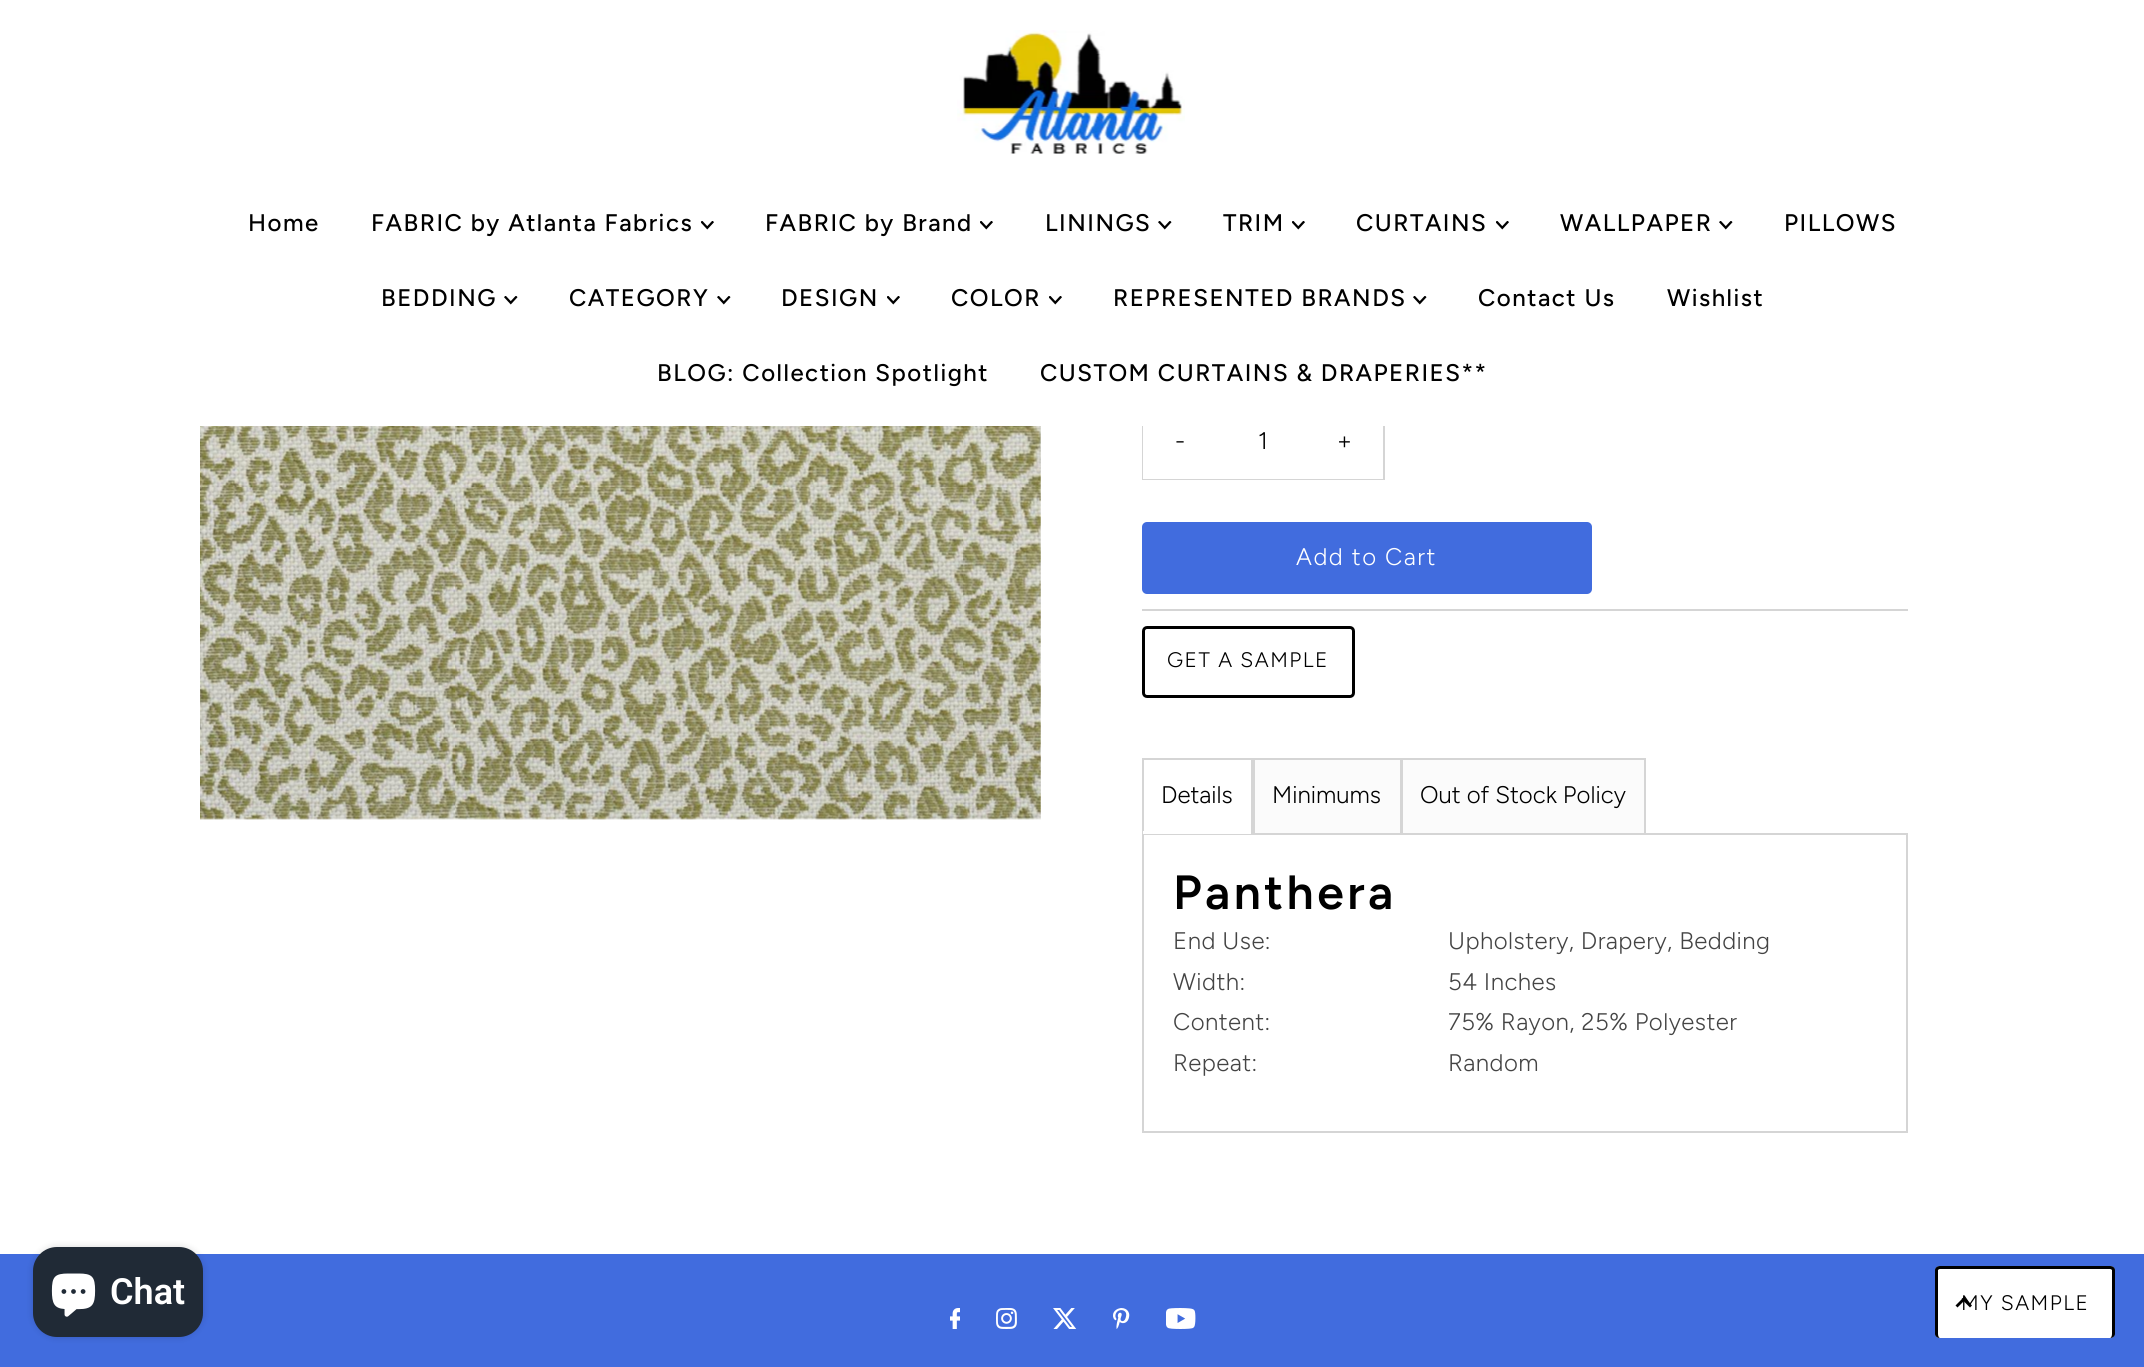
import math
import cairo


def use_color(cr, r, g, b):
  cr.set_source_rgb(r / 255, g / 255, b / 255)

def text(cr, x, y, s, family, size, color, bold=False, italic=False):
  cr.select_font_face(family, cairo.FONT_SLANT_ITALIC if italic else cairo.FONT_SLANT_NORMAL, cairo.FONT_WEIGHT_BOLD if bold else cairo.FONT_WEIGHT_NORMAL)
  cr.set_font_size(size)
  use_color(cr, *color)
  cr.move_to(x, y)
  cr.show_text(s)

def spaced_text(cr, x, y, s, letter, word):
  cr.move_to(x, y)
  for ch in s:
    cr.show_text(ch)
    cr.rel_move_to(letter + word * (ch == ' '), 0)

def box(cr, x, y, w, h, *color):
  use_color(cr, *color)
  cr.rectangle(x, y, w, h)
  cr.fill()

def round_rect(cr, x, y, w, h, r):
  cr.new_sub_path()
  for i, (u, v) in enumerate([(x + w - r, y + h - r), (x + r, y + h - r), (x + r, y + r), (x + w - r, y + r)]):
    cr.arc(u, v, r, i * math.pi / 2, (i + 1) * math.pi / 2)
  cr.close_path()

def shadow(cr, x, y, w, h, r, blur, alpha):
  cr.push_group_with_content(cairo.CONTENT_ALPHA)
  cr.set_operator(cairo.OPERATOR_SOURCE)
  for i in range(15, -16, -2):
    e = blur * i / 6
    if min(w, h) + 2 * e > 0:
      cr.set_source_rgba(0, 0, 0, alpha * math.erfc((i - 1) / 8.5) / 2)
      round_rect(cr, x - e, y - e, w + 2 * e, h + 2 * e, max(0, min(r + e + blur * .6, min(w, h) / 2 + e)))
      cr.fill()
  cr.mask(cr.pop_group())

def picture(cr, path, x, y, w, h):
  cr.save()
  cr.set_source_surface(cairo.ImageSurface.create_from_png(path), x, y)
  cr.rectangle(x, y, w, h)
  cr.fill()
  cr.restore()

def draw(cr):
  use_color(cr, 255, 255, 255)
  cr.paint()
  cr.rectangle(1143, 403, 241, 76)
  use_color(cr, 213, 213, 213)
  cr.stroke()
  box(cr, 1142, 402, 243, 24, 255, 255, 255)
  picture(cr, "img_01.png", 957, 30, 228, 124)
  picture(cr, "img_02.png", 701, 221, 13, 9)
  picture(cr, "img_02.png", 980, 221, 13, 9)
  picture(cr, "img_03.png", 1158, 221, 14, 9)
  picture(cr, "img_02.png", 1292, 221, 13, 9)
  picture(cr, "img_02.png", 1496, 221, 13, 9)
  picture(cr, "img_03.png", 1719, 221, 14, 9)
  picture(cr, "img_03.png", 504, 296, 14, 9)
  picture(cr, "img_03.png", 717, 296, 14, 9)
  picture(cr, "img_02.png", 887, 296, 13, 9)
  picture(cr, "img_02.png", 1049, 296, 13, 9)
  picture(cr, "img_03.png", 1413, 296, 14, 9)
  picture(cr, "img_04.png", 200, 426, 841, 394)
  box(cr, 1143, 426, 75, 53, 255, 255, 255)
  box(cr, 1218, 478, 165, 1, 255, 255, 255)
  box(cr, 1142, 609, 766, 2, 213, 213, 213)
  use_color(cr, 65, 108, 222)
  round_rect(cr, 1142, 522, 450, 72, 5)
  cr.fill()
  round_rect(cr, 1143.5, 627.5, 210, 69, 3.5)
  use_color(cr, 0, 0, 0)
  cr.set_line_width(3)
  cr.stroke()
  box(cr, 1142, 758, 504, 2, 213, 213, 213)
  box(cr, 1142, 758, 2, 75, 213, 213, 213)
  cr.rectangle(1143, 834, 764, 298)
  cr.set_line_width(2)
  cr.stroke()
  box(cr, 1143, 831, 108, 3, 255, 255, 255)
  box(cr, 1255, 760, 145, 73, 251, 251, 251)
  box(cr, 1400, 758, 3, 75, 213, 213, 213)
  box(cr, 1251, 758, 4, 75, 213, 213, 213)
  box(cr, 1403, 760, 241, 73, 251, 251, 251)
  box(cr, 1644, 758, 2, 75, 213, 213, 213)
  box(cr, 0, 1254, 2144, 113, 65, 108, 222)
  picture(cr, "img_05.png", 950, 1308, 10, 21)
  picture(cr, "img_06.png", 996, 1308, 21, 21)
  picture(cr, "img_07.png", 1053, 1308, 24, 21)
  picture(cr, "img_08.png", 1113, 1308, 17, 21)
  picture(cr, "img_09.png", 1166, 1308, 30, 21)
  use_color(cr, 0, 0, 0)
  shadow(cr, 33, 1247, 170, 90, 24, 4, 0.15)
  use_color(cr, 32, 42, 54)
  round_rect(cr, 33, 1247, 170, 90, 24)
  cr.fill()
  picture(cr, "img_10.png", 51, 1273, 45, 44)
  use_color(cr, 255, 255, 255)
  round_rect(cr, 1935, 1266, 180, 72, 5)
  cr.fill()
  use_color(cr, 0, 0, 0)
  cr.set_fill_rule(cairo.FILL_RULE_EVEN_ODD)
  cr.new_path()
  cr.move_to(1940, 1266)
  cr.line_to(2110, 1266)
  cr.curve_to(2113, 1266, 2115, 1268, 2115, 1270)
  cr.line_to(2115, 1334)
  cr.curve_to(2115, 1336, 2113, 1338, 2110, 1338)
  cr.line_to(1940, 1338)
  cr.curve_to(1937, 1338, 1935, 1336, 1935, 1334)
  cr.line_to(1935, 1270)
  cr.curve_to(1935, 1268, 1937, 1266, 1940, 1266)
  cr.close_path()
  cr.move_to(1940, 1269)
  cr.line_to(2110, 1269)
  cr.curve_to(2111, 1269, 2112, 1270, 2112, 1270)
  cr.line_to(2112, 1334)
  cr.curve_to(2112, 1336, 2111, 1338, 2110, 1338)
  cr.line_to(1940, 1338)
  cr.curve_to(1939, 1338, 1938, 1336, 1938, 1334)
  cr.line_to(1938, 1270)
  cr.curve_to(1938, 1270, 1939, 1269, 1940, 1269)
  cr.close_path()
  cr.fill()
  cr.set_fill_rule(cairo.FILL_RULE_WINDING)
  cr.new_path()
  cr.move_to(1964, 1297)
  cr.line_to(1972, 1305.5)
  cr.line_to(1970, 1307.5)
  cr.line_to(1961.5, 1299)
  cr.close_path()
  cr.fill()
  cr.new_path()
  cr.move_to(1964, 1297)
  cr.line_to(1966, 1299)
  cr.line_to(1957.5, 1307.5)
  cr.line_to(1955.5, 1305.5)
  cr.close_path()
  cr.fill()
  cr.select_font_face("Figtree Medium")
  cr.set_font_size(24)
  spaced_text(cr, 248, 231, "Home", 1.5, 0)
  spaced_text(cr, 371, 231, "FABRIC by Atlanta Fabrics", 1.5, 0)
  spaced_text(cr, 765, 231, "FABRIC by Brand", 1.5, 0)
  spaced_text(cr, 1045, 231, "LININGS", 1.5, 0)
  spaced_text(cr, 1223, 231, "TRIM", 1.5, 0)
  spaced_text(cr, 1356, 231, "CURTAINS", 1.5, 0)
  spaced_text(cr, 1560, 231, "WALLPAPER", 1.5, 0)
  spaced_text(cr, 1784, 231, "PILLOWS", 1.5, 0)
  spaced_text(cr, 381, 306, "BEDDING", 1.5, 0)
  spaced_text(cr, 569, 306, "CATEGORY", 1.5, 0)
  spaced_text(cr, 781, 306, "DESIGN", 1.5, 0)
  spaced_text(cr, 951, 306, "COLOR", 1.5, 0)
  spaced_text(cr, 1113, 306, "REPRESENTED BRANDS", 1.5, 0)
  spaced_text(cr, 1478, 306, "Contact Us", 1.5, 0)
  spaced_text(cr, 1667, 306, "Wishlist", 1.5, 0)
  spaced_text(cr, 657, 381, "BLOG: Collection Spotlight", 1.5, 0)
  spaced_text(cr, 1040, 381, "CUSTOM CURTAINS & DRAPERIES**", 1.5, 0)
  cr.select_font_face("Figtree Light")
  spaced_text(cr, 1175, 449, "-", 1.5, 0)
  text(cr, 1258, 449, "1", "Figtree Light", 24, (0, 0, 0))
  spaced_text(cr, 1337, 449, "+", 1.5, 0)
  use_color(cr, 255, 255, 255)
  spaced_text(cr, 1296, 565, "Add to Cart", 1.5, 0)
  cr.set_font_size(21)
  use_color(cr, 0, 0, 0)
  spaced_text(cr, 1167, 667, "GET A SAMPLE", 1.5, 0)
  text(cr, 1161, 803, "Details", "Figtree Light", 24, (0, 0, 0))
  text(cr, 1272, 803, "Minimums", "Figtree Light", 24, (0, 0, 0))
  text(cr, 1420, 803, "Out of Stock Policy", "Figtree Light", 24, (0, 0, 0))
  cr.select_font_face("Figtree SemiBold")
  cr.set_font_size(48)
  spaced_text(cr, 1173, 909, "Panthera", 3.5, 0)
  cr.select_font_face("Figtree Light")
  cr.set_font_size(24)
  use_color(cr, 68, 68, 68)
  spaced_text(cr, 1173, 949, "End Use:", 0.45, 0)
  spaced_text(cr, 1448, 949, "Upholstery, Drapery, Bedding", 0.45, 0)
  spaced_text(cr, 1173, 990, "Width:", 0.45, 0)
  spaced_text(cr, 1448, 990, "54 Inches", 0.45, 0)
  spaced_text(cr, 1173, 1030, "Content:", 0.45, 0)
  spaced_text(cr, 1448, 1030, "75% Rayon, 25% Polyester", 0.45, 0)
  spaced_text(cr, 1173, 1071, "Repeat:", 0.45, 0)
  spaced_text(cr, 1448, 1071, "Random", 0.45, 0)
  text(cr, 110, 1304, "Chat", "Roboto SemiBold", 36, (255, 255, 255))
  cr.select_font_face("Figtree Light")
  cr.set_font_size(21)
  use_color(cr, 0, 0, 0)
  spaced_text(cr, 1961, 1310, "MY SAMPLE", 1.5, 0)


surface = cairo.ImageSurface(cairo.FORMAT_RGB24, 2144, 1367)
cr = cairo.Context(surface)
options = cairo.FontOptions()
options.set_hint_metrics(cairo.HINT_METRICS_OFF)
options.set_hint_style(cairo.HINT_STYLE_NONE)
cr.set_font_options(options)
cr.set_miter_limit(4)
draw(cr)
surface.write_to_png("out.png")
